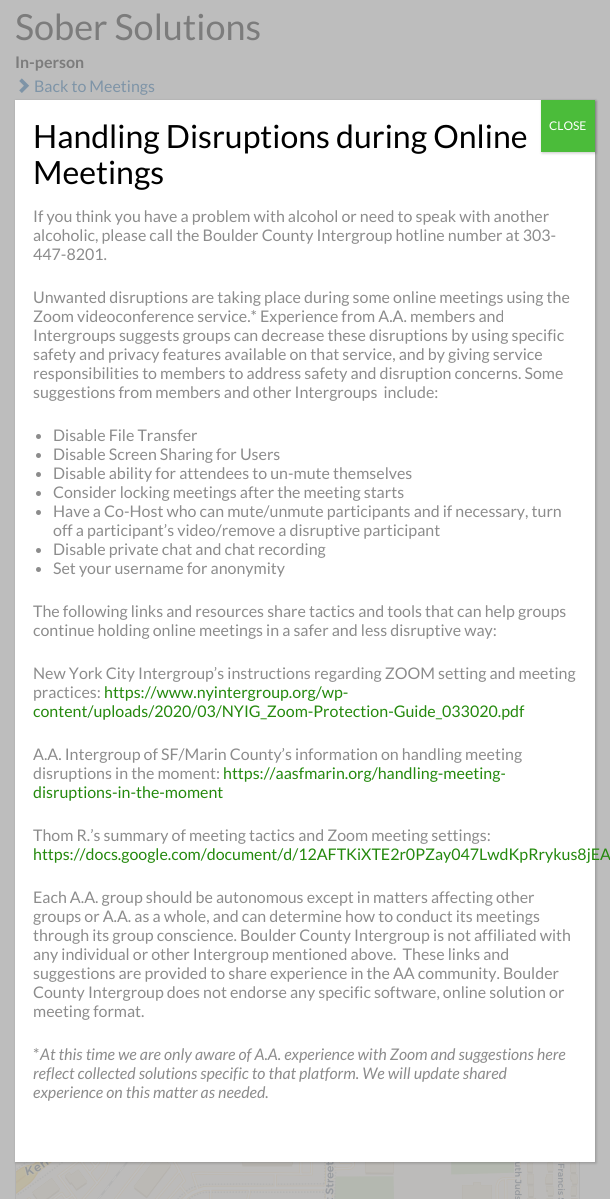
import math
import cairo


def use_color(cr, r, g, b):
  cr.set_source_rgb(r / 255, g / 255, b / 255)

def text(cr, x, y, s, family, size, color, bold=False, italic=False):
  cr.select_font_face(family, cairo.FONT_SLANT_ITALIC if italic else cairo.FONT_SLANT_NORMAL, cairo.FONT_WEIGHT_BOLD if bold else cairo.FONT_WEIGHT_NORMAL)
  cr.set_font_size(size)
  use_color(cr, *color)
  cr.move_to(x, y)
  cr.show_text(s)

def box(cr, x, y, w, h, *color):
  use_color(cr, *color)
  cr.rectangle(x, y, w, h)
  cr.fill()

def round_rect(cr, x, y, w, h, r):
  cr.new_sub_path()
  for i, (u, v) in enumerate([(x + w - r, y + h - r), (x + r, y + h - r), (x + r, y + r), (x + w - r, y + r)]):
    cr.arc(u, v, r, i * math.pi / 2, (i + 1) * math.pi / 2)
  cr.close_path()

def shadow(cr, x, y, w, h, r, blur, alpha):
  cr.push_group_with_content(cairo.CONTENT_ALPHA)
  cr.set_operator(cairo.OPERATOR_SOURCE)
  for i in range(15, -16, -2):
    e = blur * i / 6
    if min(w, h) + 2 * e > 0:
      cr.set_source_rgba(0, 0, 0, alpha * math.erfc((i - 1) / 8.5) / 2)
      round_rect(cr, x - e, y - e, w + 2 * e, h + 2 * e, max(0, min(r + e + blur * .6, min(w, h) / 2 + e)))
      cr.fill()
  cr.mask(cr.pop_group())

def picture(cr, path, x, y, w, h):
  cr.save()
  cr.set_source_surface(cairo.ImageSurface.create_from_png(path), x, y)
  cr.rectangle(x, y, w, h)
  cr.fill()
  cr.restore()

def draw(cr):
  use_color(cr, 189, 189, 189)
  cr.paint()
  picture(cr, "img_01.png", 19, 78, 11, 15)
  cr.rectangle(15.5, 810.5, 564, 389)
  use_color(cr, 179, 179, 179)
  cr.set_line_width(1)
  cr.stroke()
  picture(cr, "img_02.png", 16, 1162, 2, 37)
  picture(cr, "img_03.png", 18, 1162, 256, 37)
  picture(cr, "img_04.png", 274, 1162, 256, 37)
  picture(cr, "img_05.png", 530, 1162, 49, 37)
  use_color(cr, 2, 2, 2)
  shadow(cr, 16, 101, 580, 1062, 0, 1.5, 0.23)
  box(cr, 15, 100, 580, 1062, 255, 255, 255)
  use_color(cr, 2, 2, 2)
  shadow(cr, 542, 101, 54, 52, 0, 1.5, 0.23)
  box(cr, 541, 100, 54, 52, 75, 188, 58)
  use_color(cr, 140, 140, 140)
  cr.arc(38.5, 436.5, 2.5, 0, 2 * math.pi)
  cr.fill()
  cr.arc(38.5, 455.5, 2.5, 0, 2 * math.pi)
  cr.fill()
  cr.arc(38.5, 474.5, 2.5, 0, 2 * math.pi)
  cr.fill()
  cr.arc(38.5, 493.5, 2.5, 0, 2 * math.pi)
  cr.fill()
  cr.arc(38.5, 512.5, 2.5, 0, 2 * math.pi)
  cr.fill()
  cr.arc(38.5, 550.5, 2.5, 0, 2 * math.pi)
  cr.fill()
  cr.arc(38.5, 569.5, 2.5, 0, 2 * math.pi)
  cr.fill()
  text(cr, 15, 40, "Sober Solutions", "Lato", 36, (124, 124, 124))
  text(cr, 15, 68, "In-person", "Lato", 16, (124, 124, 124), bold=True)
  text(cr, 34, 92, "Back to Meetings", "Lato", 16, (126, 148, 167))
  text(cr, 33, 148, "Handling Disruptions during Online", "Lato", 32, (0, 0, 0))
  text(cr, 33, 184, "Meetings", "Lato", 32, (0, 0, 0))
  text(cr, 549, 130, "CLOSE", "Lato", 12, (255, 255, 255))
  text(cr, 33, 222, "If you think you have a problem with alcohol or need to speak with another", "Lato", 16, (140, 140, 140))
  text(cr, 33, 241, "alcoholic, please call the Boulder County Intergroup hotline number at 303-", "Lato", 16, (140, 140, 140))
  text(cr, 33, 260, "447-8201.", "Lato", 16, (140, 140, 140))
  text(cr, 33, 303, "Unwanted disruptions are taking place during some online meetings using the", "Lato", 16, (140, 140, 140))
  text(cr, 33, 322, "Zoom videoconference service.* Experience from A.A. members and", "Lato", 16, (140, 140, 140))
  text(cr, 33, 341, "Intergroups suggests groups can decrease these disruptions by using specific", "Lato", 16, (140, 140, 140))
  text(cr, 33, 360, "safety and privacy features available on that service, and by giving service", "Lato", 16, (140, 140, 140))
  text(cr, 33, 379, "responsibilities to members to address safety and disruption concerns. Some", "Lato", 16, (140, 140, 140))
  text(cr, 33, 398, "suggestions from members and other Intergroups  include:", "Lato", 16, (140, 140, 140))
  text(cr, 53, 441, "Disable File Transfer", "Lato", 16, (140, 140, 140))
  text(cr, 53, 460, "Disable Screen Sharing for Users", "Lato", 16, (140, 140, 140))
  text(cr, 53, 479, "Disable ability for attendees to un-mute themselves", "Lato", 16, (140, 140, 140))
  text(cr, 53, 498, "Consider locking meetings after the meeting starts", "Lato", 16, (140, 140, 140))
  text(cr, 53, 517, "Have a Co-Host who can mute/unmute participants and if necessary, turn", "Lato", 16, (140, 140, 140))
  text(cr, 53, 536, "off a participant’s video/remove a disruptive participant", "Lato", 16, (140, 140, 140))
  text(cr, 53, 555, "Disable private chat and chat recording", "Lato", 16, (140, 140, 140))
  text(cr, 53, 574, "Set your username for anonymity", "Lato", 16, (140, 140, 140))
  text(cr, 33, 617, "The following links and resources share tactics and tools that can help groups", "Lato", 16, (140, 140, 140))
  text(cr, 33, 636, "continue holding online meetings in a safer and less disruptive way:", "Lato", 16, (140, 140, 140))
  text(cr, 33, 679, "New York City Intergroup’s instructions regarding ZOOM setting and meeting", "Lato", 16, (140, 140, 140))
  text(cr, 33, 698, "practices:", "Lato", 16, (140, 140, 140))
  text(cr, 104, 698, "https://www.nyintergroup.org/wp-", "Lato", 16, (36, 137, 13))
  text(cr, 33, 717, "content/uploads/2020/03/NYIG_Zoom-Protection-Guide_033020.pdf", "Lato", 16, (36, 137, 13))
  text(cr, 33, 760, "A.A. Intergroup of SF/Marin County’s information on handling meeting", "Lato", 16, (140, 140, 140))
  text(cr, 33, 779, "disruptions in the moment:", "Lato", 16, (140, 140, 140))
  text(cr, 223, 779, "https://aasfmarin.org/handling-meeting-", "Lato", 16, (36, 137, 13))
  text(cr, 33, 798, "disruptions-in-the-moment", "Lato", 16, (36, 137, 13))
  text(cr, 33, 841, "Thom R.’s summary of meeting tactics and Zoom meeting settings:", "Lato", 16, (140, 140, 140))
  text(cr, 33, 860, "https://docs.google.com/document/d/12AFTKiXTE2r0PZay047LwdKpRrykus8jEA", "Lato", 16, (36, 137, 13))
  text(cr, 33, 903, "Each A.A. group should be autonomous except in matters affecting other", "Lato", 16, (140, 140, 140))
  text(cr, 33, 922, "groups or A.A. as a whole, and can determine how to conduct its meetings", "Lato", 16, (140, 140, 140))
  text(cr, 33, 941, "through its group conscience. Boulder County Intergroup is not affiliated with", "Lato", 16, (140, 140, 140))
  text(cr, 33, 960, "any individual or other Intergroup mentioned above.  These links and", "Lato", 16, (140, 140, 140))
  text(cr, 33, 979, "suggestions are provided to share experience in the AA community. Boulder", "Lato", 16, (140, 140, 140))
  text(cr, 33, 998, "County Intergroup does not endorse any specific software, online solution or", "Lato", 16, (140, 140, 140))
  text(cr, 33, 1017, "meeting format.", "Lato", 16, (140, 140, 140))
  text(cr, 33, 1060, "*", "Lato", 16, (140, 140, 140))
  text(cr, 40, 1060, "At this time we are only aware of A.A. experience with Zoom and suggestions here", "Lato", 16, (140, 140, 140), italic=True)
  text(cr, 33, 1079, "reflect collected solutions specific to that platform. We will update shared", "Lato", 16, (140, 140, 140), italic=True)
  text(cr, 33, 1098, "experience on this matter as needed.", "Lato", 16, (140, 140, 140), italic=True)


surface = cairo.ImageSurface(cairo.FORMAT_RGB24, 610, 1199)
cr = cairo.Context(surface)
options = cairo.FontOptions()
options.set_hint_metrics(cairo.HINT_METRICS_OFF)
options.set_hint_style(cairo.HINT_STYLE_NONE)
cr.set_font_options(options)
cr.set_miter_limit(4)
draw(cr)
surface.write_to_png("out.png")
